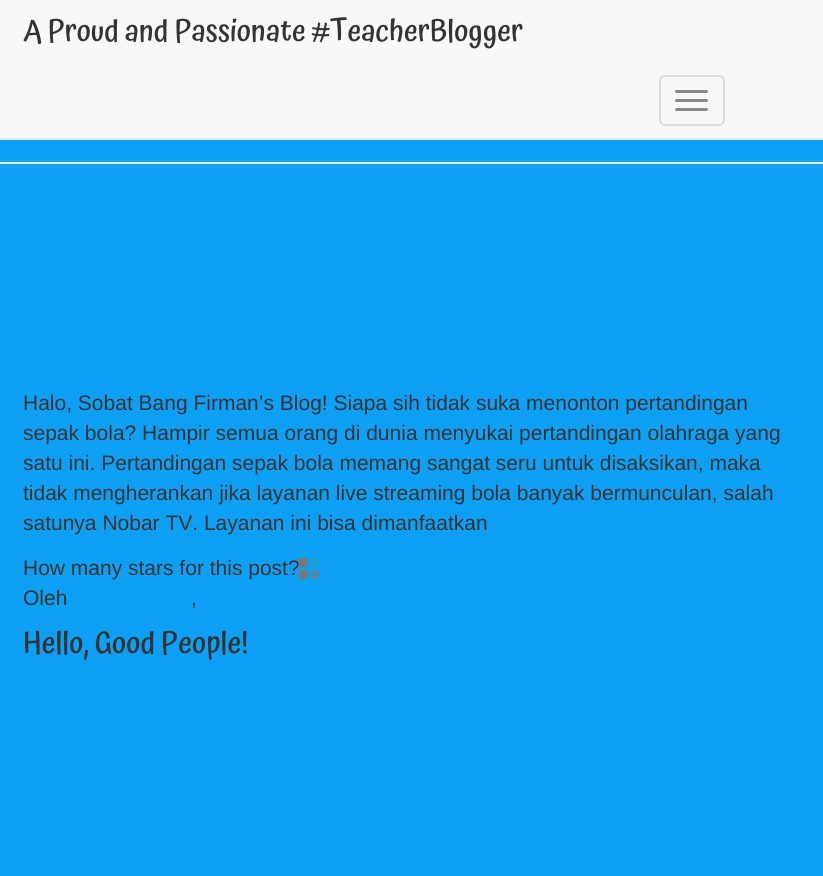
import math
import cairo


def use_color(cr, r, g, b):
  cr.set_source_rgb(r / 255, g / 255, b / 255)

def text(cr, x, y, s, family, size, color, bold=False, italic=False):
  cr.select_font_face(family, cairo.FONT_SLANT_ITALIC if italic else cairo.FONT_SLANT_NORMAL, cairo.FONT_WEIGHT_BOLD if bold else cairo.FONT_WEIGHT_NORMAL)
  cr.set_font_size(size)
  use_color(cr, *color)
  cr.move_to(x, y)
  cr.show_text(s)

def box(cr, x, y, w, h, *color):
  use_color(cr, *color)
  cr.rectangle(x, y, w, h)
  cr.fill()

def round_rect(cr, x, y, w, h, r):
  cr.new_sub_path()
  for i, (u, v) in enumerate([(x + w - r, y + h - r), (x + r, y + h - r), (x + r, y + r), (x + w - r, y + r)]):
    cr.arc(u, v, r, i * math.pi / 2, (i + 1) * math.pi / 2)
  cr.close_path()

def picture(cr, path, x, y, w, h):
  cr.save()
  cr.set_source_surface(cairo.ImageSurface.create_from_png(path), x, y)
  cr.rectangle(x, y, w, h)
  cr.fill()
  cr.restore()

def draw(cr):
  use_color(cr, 14, 160, 244)
  cr.paint()
  box(cr, 0, 0, 823, 138, 248, 248, 248)
  box(cr, 0, 138, 823, 2, 231, 231, 231)
  round_rect(cr, 660, 76, 64, 49, 5)
  use_color(cr, 221, 221, 221)
  cr.stroke()
  use_color(cr, 136, 136, 136)
  round_rect(cr, 675, 90, 33, 3, 1.5)
  cr.fill()
  round_rect(cr, 675, 99, 33, 3, 1.5)
  cr.fill()
  round_rect(cr, 675, 108, 33, 3, 1.5)
  cr.fill()
  box(cr, 0, 162, 823, 2, 238, 238, 238)
  text(cr, 23, 41, "A Proud and Passionate #TeacherBlogger", "Atma Medium", 30, (51, 51, 51))
  text(cr, 23, 410, "Halo, Sobat Bang Firman’s Blog! Siapa sih tidak suka menonton pertandingan", "Liberation Sans", 21, (51, 51, 51))
  text(cr, 23, 440, "sepak bola? Hampir semua orang di dunia menyukai pertandingan olahraga yang", "Liberation Sans", 21, (51, 51, 51))
  text(cr, 23, 470, "satu ini. Pertandingan sepak bola memang sangat seru untuk disaksikan, maka", "Liberation Sans", 21, (51, 51, 51))
  text(cr, 23, 500, "tidak mengherankan jika layanan live streaming bola banyak bermunculan, salah", "Liberation Sans", 21, (51, 51, 51))
  text(cr, 23, 530, "satunya Nobar TV. Layanan ini bisa dimanfaatkan", "Liberation Sans", 21, (51, 51, 51))
  text(cr, 23, 575, "How many stars for this post?", "Liberation Sans", 21, (51, 51, 51))
  picture(cr, "img_01.png", 298, 558, 22, 21)
  text(cr, 23, 605, "Oleh", "Liberation Sans", 21, (51, 51, 51))
  text(cr, 191, 605, ",", "Liberation Sans", 21, (51, 51, 51))
  text(cr, 23, 653, "Hello, Good People!", "Atma Medium", 30, (51, 51, 51))


surface = cairo.ImageSurface(cairo.FORMAT_RGB24, 823, 876)
cr = cairo.Context(surface)
options = cairo.FontOptions()
options.set_hint_metrics(cairo.HINT_METRICS_OFF)
options.set_hint_style(cairo.HINT_STYLE_NONE)
cr.set_font_options(options)
cr.set_miter_limit(4)
draw(cr)
surface.write_to_png("out.png")
